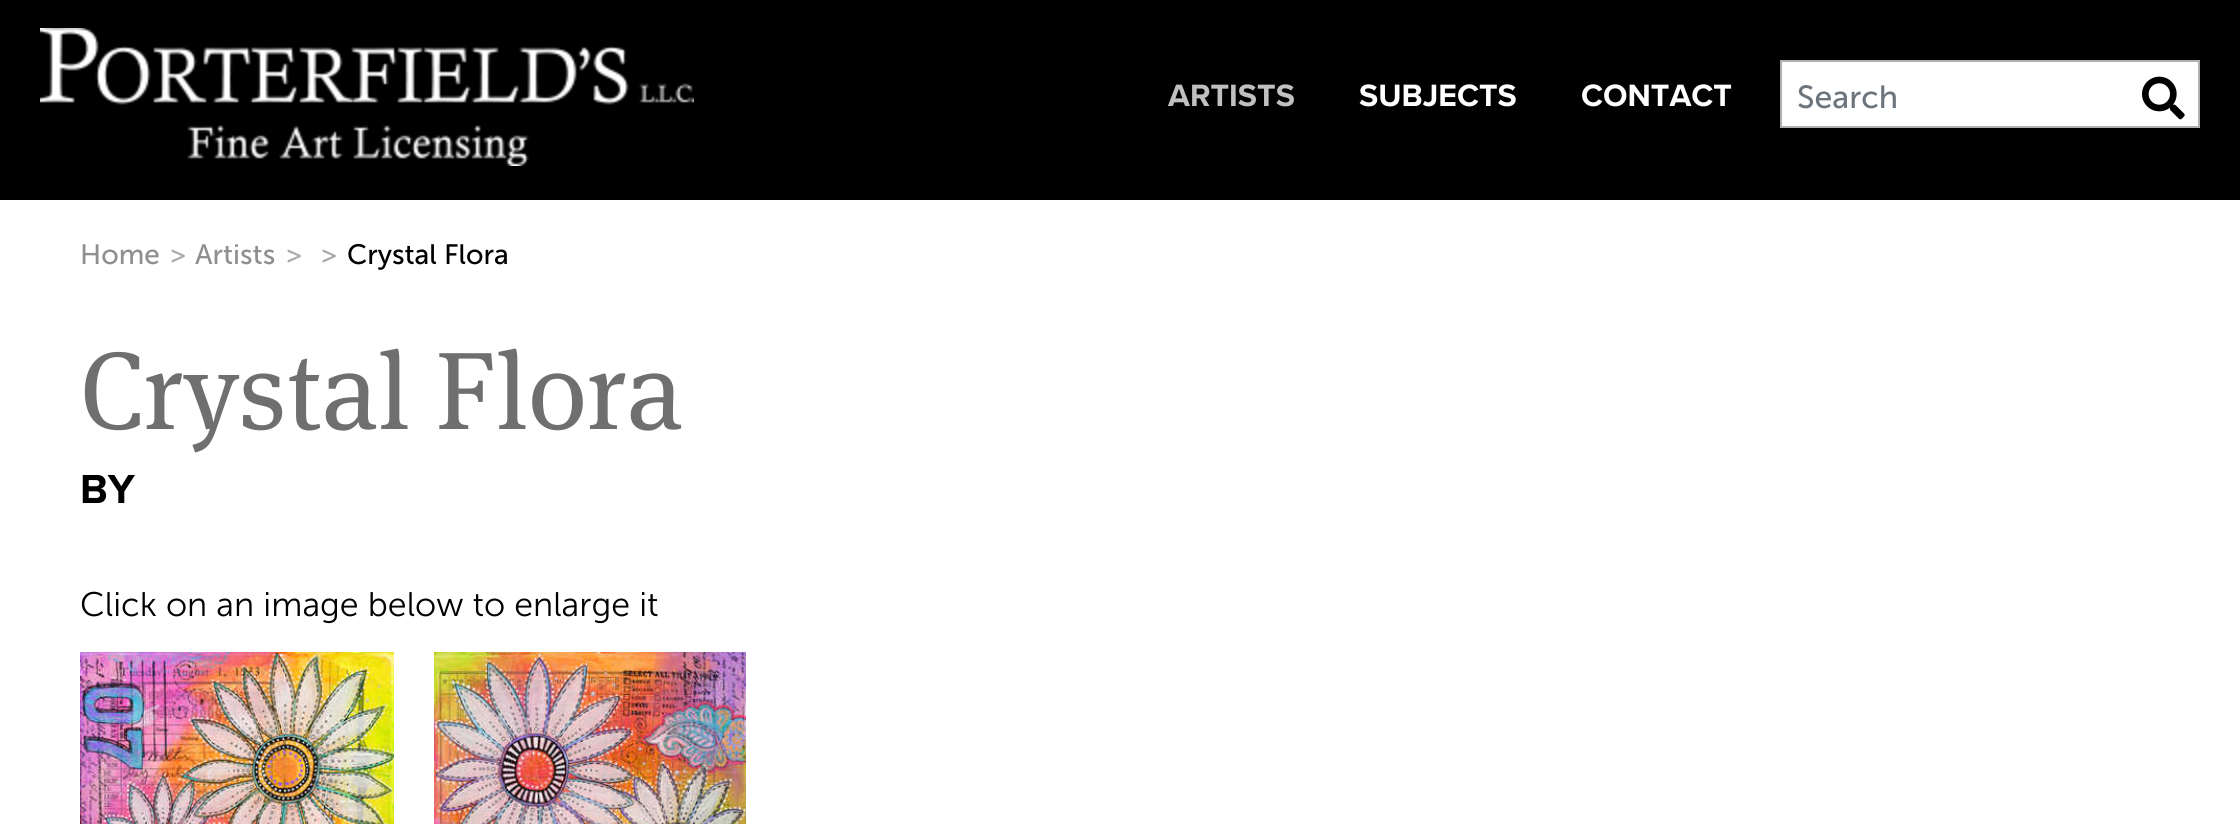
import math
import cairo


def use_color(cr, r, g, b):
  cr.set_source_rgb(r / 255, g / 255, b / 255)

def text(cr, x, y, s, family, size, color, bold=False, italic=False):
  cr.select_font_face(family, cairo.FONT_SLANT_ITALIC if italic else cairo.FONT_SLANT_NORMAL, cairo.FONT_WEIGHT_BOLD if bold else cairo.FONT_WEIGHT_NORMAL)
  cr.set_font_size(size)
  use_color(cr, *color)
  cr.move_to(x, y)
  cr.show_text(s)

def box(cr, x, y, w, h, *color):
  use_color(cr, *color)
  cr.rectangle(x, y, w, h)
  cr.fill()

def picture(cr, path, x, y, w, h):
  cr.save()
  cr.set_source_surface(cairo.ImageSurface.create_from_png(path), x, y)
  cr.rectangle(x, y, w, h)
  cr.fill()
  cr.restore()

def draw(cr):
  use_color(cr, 255, 255, 255)
  cr.paint()
  box(cr, 0, 0, 2240, 200, 0, 0, 0)
  picture(cr, "img_01.png", 40, 28, 654, 138)
  use_color(cr, 255, 255, 255)
  cr.rectangle(1781, 61, 418, 66)
  cr.fill_preserve()
  use_color(cr, 175, 175, 175)
  cr.stroke()
  picture(cr, "img_02.png", 2142, 76, 43, 44)
  picture(cr, "img_03.png", 80, 652, 314, 172)
  picture(cr, "img_04.png", 434, 652, 312, 172)
  text(cr, 1168, 106, "ARTISTS", "Proxima Nova", 32, (192, 192, 192), bold=True)
  text(cr, 1359, 106, "SUBJECTS", "Proxima Nova", 32, (255, 255, 255), bold=True)
  text(cr, 1581, 106, "CONTACT", "Proxima Nova", 32, (255, 255, 255), bold=True)
  text(cr, 1797, 108, "Search", "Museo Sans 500", 32, (108, 117, 125))
  text(cr, 80, 264, "Home", "Museo Sans 500", 28, (143, 143, 143))
  text(cr, 170, 264, ">", "Museo Sans 500", 28, (169, 169, 169))
  text(cr, 195, 264, "Artists", "Museo Sans 500", 28, (143, 143, 143))
  text(cr, 286, 264, ">", "Museo Sans 500", 28, (169, 169, 169))
  text(cr, 321, 264, ">", "Museo Sans 500", 28, (169, 169, 169))
  text(cr, 347, 264, "Crystal Flora", "Museo Sans 500", 28, (0, 0, 0))
  text(cr, 80, 429, "Crystal Flora", "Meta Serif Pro", 110, (111, 111, 111))
  text(cr, 80, 503, "BY", "Proxima Nova", 42, (0, 0, 0), bold=True)
  text(cr, 80, 616, "Click on an image below to enlarge it", "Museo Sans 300 Light", 34, (0, 0, 0))


surface = cairo.ImageSurface(cairo.FORMAT_RGB24, 2240, 824)
cr = cairo.Context(surface)
options = cairo.FontOptions()
options.set_hint_metrics(cairo.HINT_METRICS_OFF)
options.set_hint_style(cairo.HINT_STYLE_NONE)
cr.set_font_options(options)
cr.set_miter_limit(4)
draw(cr)
surface.write_to_png("out.png")
